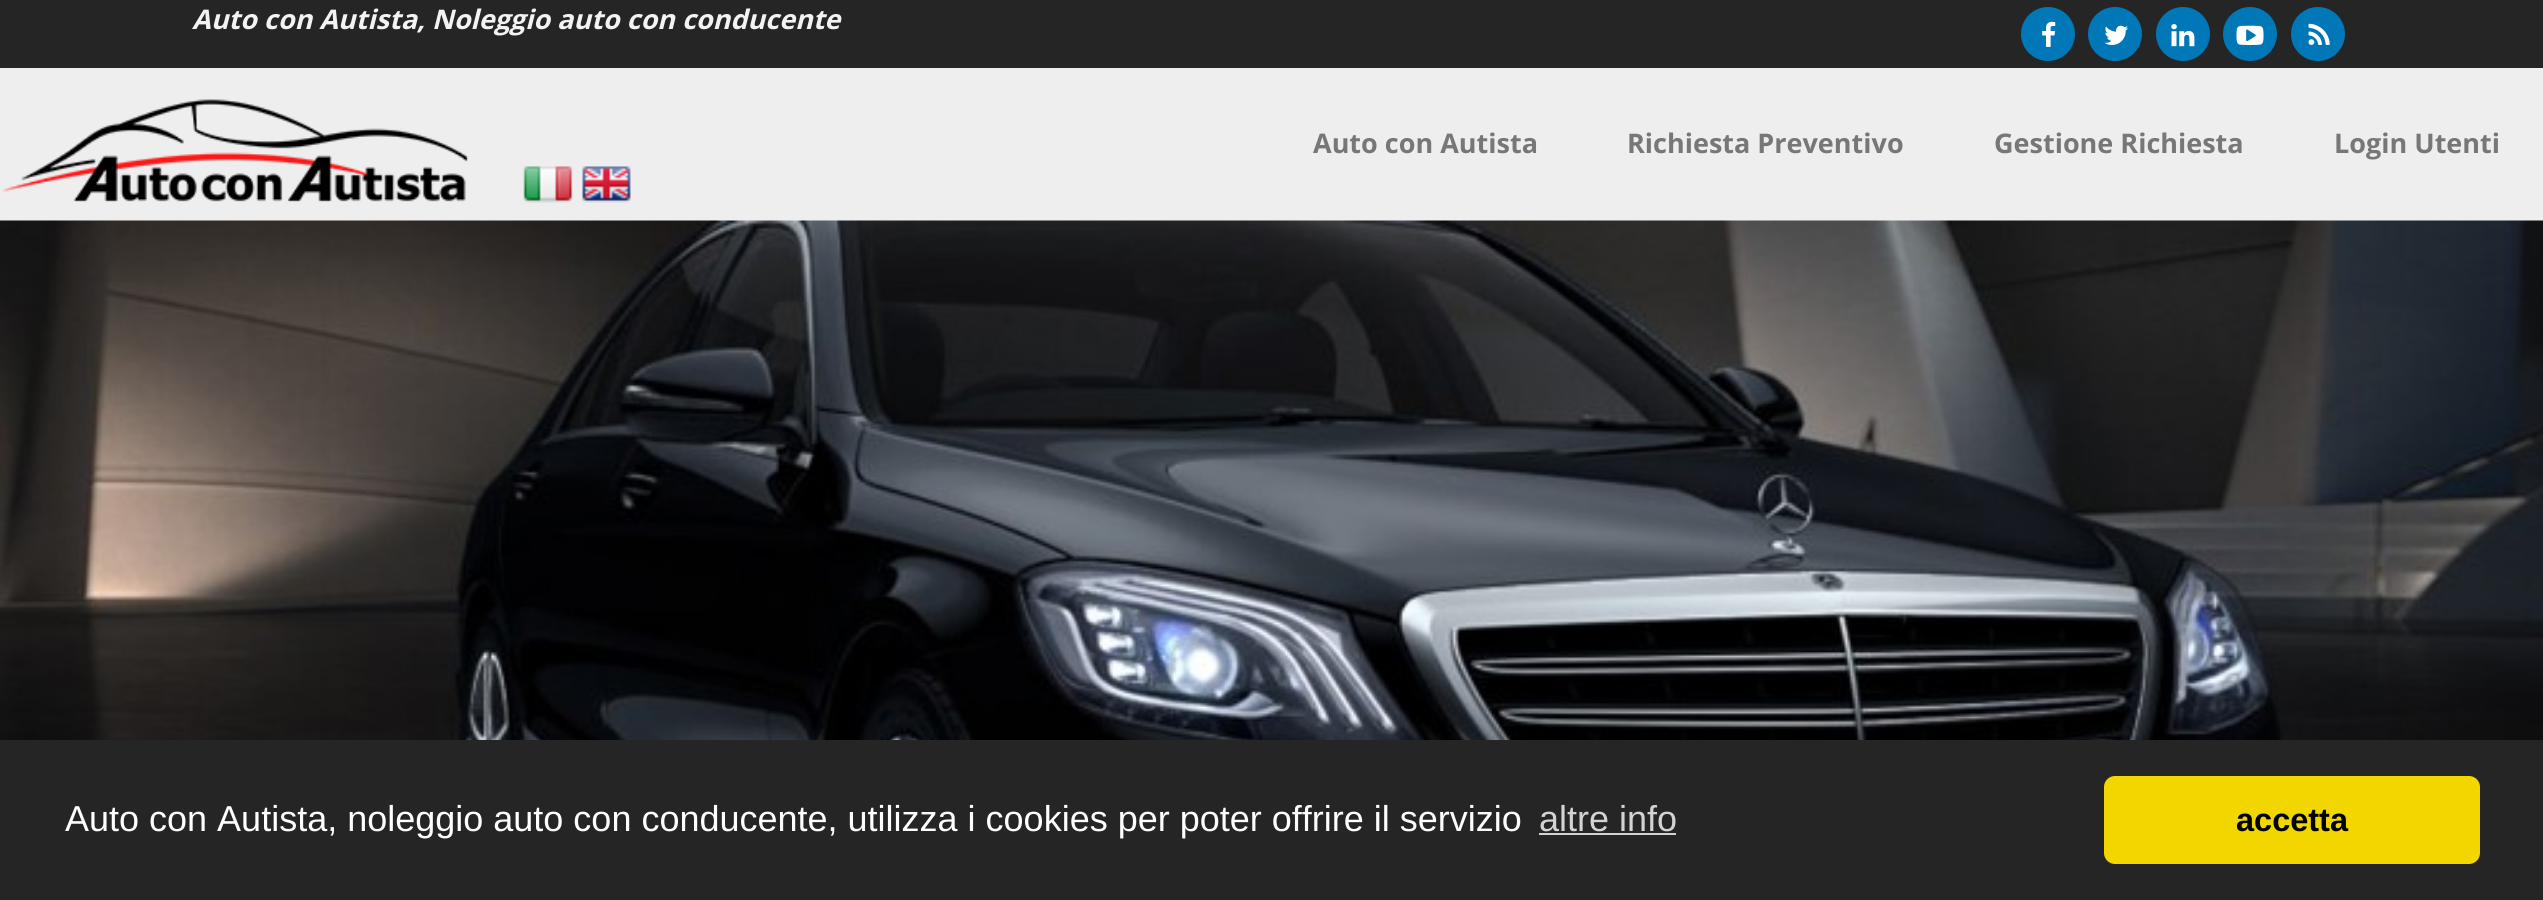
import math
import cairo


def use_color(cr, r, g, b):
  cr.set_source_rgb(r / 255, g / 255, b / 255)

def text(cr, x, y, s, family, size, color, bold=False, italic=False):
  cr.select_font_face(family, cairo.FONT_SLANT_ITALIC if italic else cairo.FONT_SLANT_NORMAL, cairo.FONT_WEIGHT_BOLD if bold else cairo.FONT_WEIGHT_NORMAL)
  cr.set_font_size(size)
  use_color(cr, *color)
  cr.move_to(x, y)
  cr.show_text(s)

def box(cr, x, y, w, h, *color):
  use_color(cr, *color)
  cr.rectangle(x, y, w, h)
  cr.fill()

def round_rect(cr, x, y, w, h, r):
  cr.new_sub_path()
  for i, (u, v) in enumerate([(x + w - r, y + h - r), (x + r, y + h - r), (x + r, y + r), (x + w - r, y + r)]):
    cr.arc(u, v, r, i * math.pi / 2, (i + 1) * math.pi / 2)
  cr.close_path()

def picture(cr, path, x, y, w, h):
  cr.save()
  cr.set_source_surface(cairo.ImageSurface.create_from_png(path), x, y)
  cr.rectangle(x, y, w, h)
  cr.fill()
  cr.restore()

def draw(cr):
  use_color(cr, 37, 37, 37)
  cr.paint()
  use_color(cr, 0, 119, 182)
  cr.arc(2048, 34, 27, 0, 2 * math.pi)
  cr.fill()
  picture(cr, "img_01.png", 2042, 21, 14, 26)
  cr.arc(2115, 34, 27, 0, 2 * math.pi)
  cr.fill()
  picture(cr, "img_02.png", 2104, 25, 24, 20)
  cr.arc(2183, 34, 27, 0, 2 * math.pi)
  cr.fill()
  picture(cr, "img_03.png", 2171, 24, 24, 23)
  cr.arc(2250, 34, 27, 0, 2 * math.pi)
  cr.fill()
  picture(cr, "img_04.png", 2236, 25, 28, 20)
  cr.arc(2318, 34, 27, 0, 2 * math.pi)
  cr.fill()
  picture(cr, "img_05.png", 2308, 23, 22, 22)
  box(cr, 0, 68, 2543, 153, 238, 238, 238)
  picture(cr, "img_06.png", 2, 99, 466, 103)
  picture(cr, "img_07.png", 523, 166, 50, 37)
  picture(cr, "img_08.png", 582, 166, 49, 37)
  picture(cr, "img_09.png", 0, 220, 2543, 520)
  box(cr, 1539, 833, 137, 2, 211, 211, 211)
  use_color(cr, 241, 214, 0)
  round_rect(cr, 2104, 776, 376, 88, 11)
  cr.fill()
  text(cr, 192, 29, "Auto con Autista, Noleggio auto con conducente", "Open Sans", 27, (243, 243, 243), bold=True, italic=True)
  text(cr, 1313, 153, "Auto con Autista", "Open Sans", 27, (119, 119, 119), bold=True)
  text(cr, 1627, 153, "Richiesta Preventivo", "Open Sans", 27, (119, 119, 119), bold=True)
  text(cr, 1994, 153, "Gestione Richiesta", "Open Sans", 27, (119, 119, 119), bold=True)
  text(cr, 2334, 153, "Login Utenti", "Open Sans", 27, (119, 119, 119), bold=True)
  text(cr, 65, 831, "Auto con Autista, noleggio auto con conducente, utilizza i cookies per poter offrire il servizio", "Liberation Sans", 36, (255, 255, 255))
  text(cr, 1539, 831, "altre info", "Liberation Sans", 36, (211, 211, 211))
  text(cr, 2236, 831, "accetta", "Liberation Sans", 32.5, (0, 0, 0), bold=True)


surface = cairo.ImageSurface(cairo.FORMAT_RGB24, 2543, 900)
cr = cairo.Context(surface)
options = cairo.FontOptions()
options.set_hint_metrics(cairo.HINT_METRICS_OFF)
options.set_hint_style(cairo.HINT_STYLE_NONE)
cr.set_font_options(options)
cr.set_miter_limit(4)
draw(cr)
surface.write_to_png("out.png")
